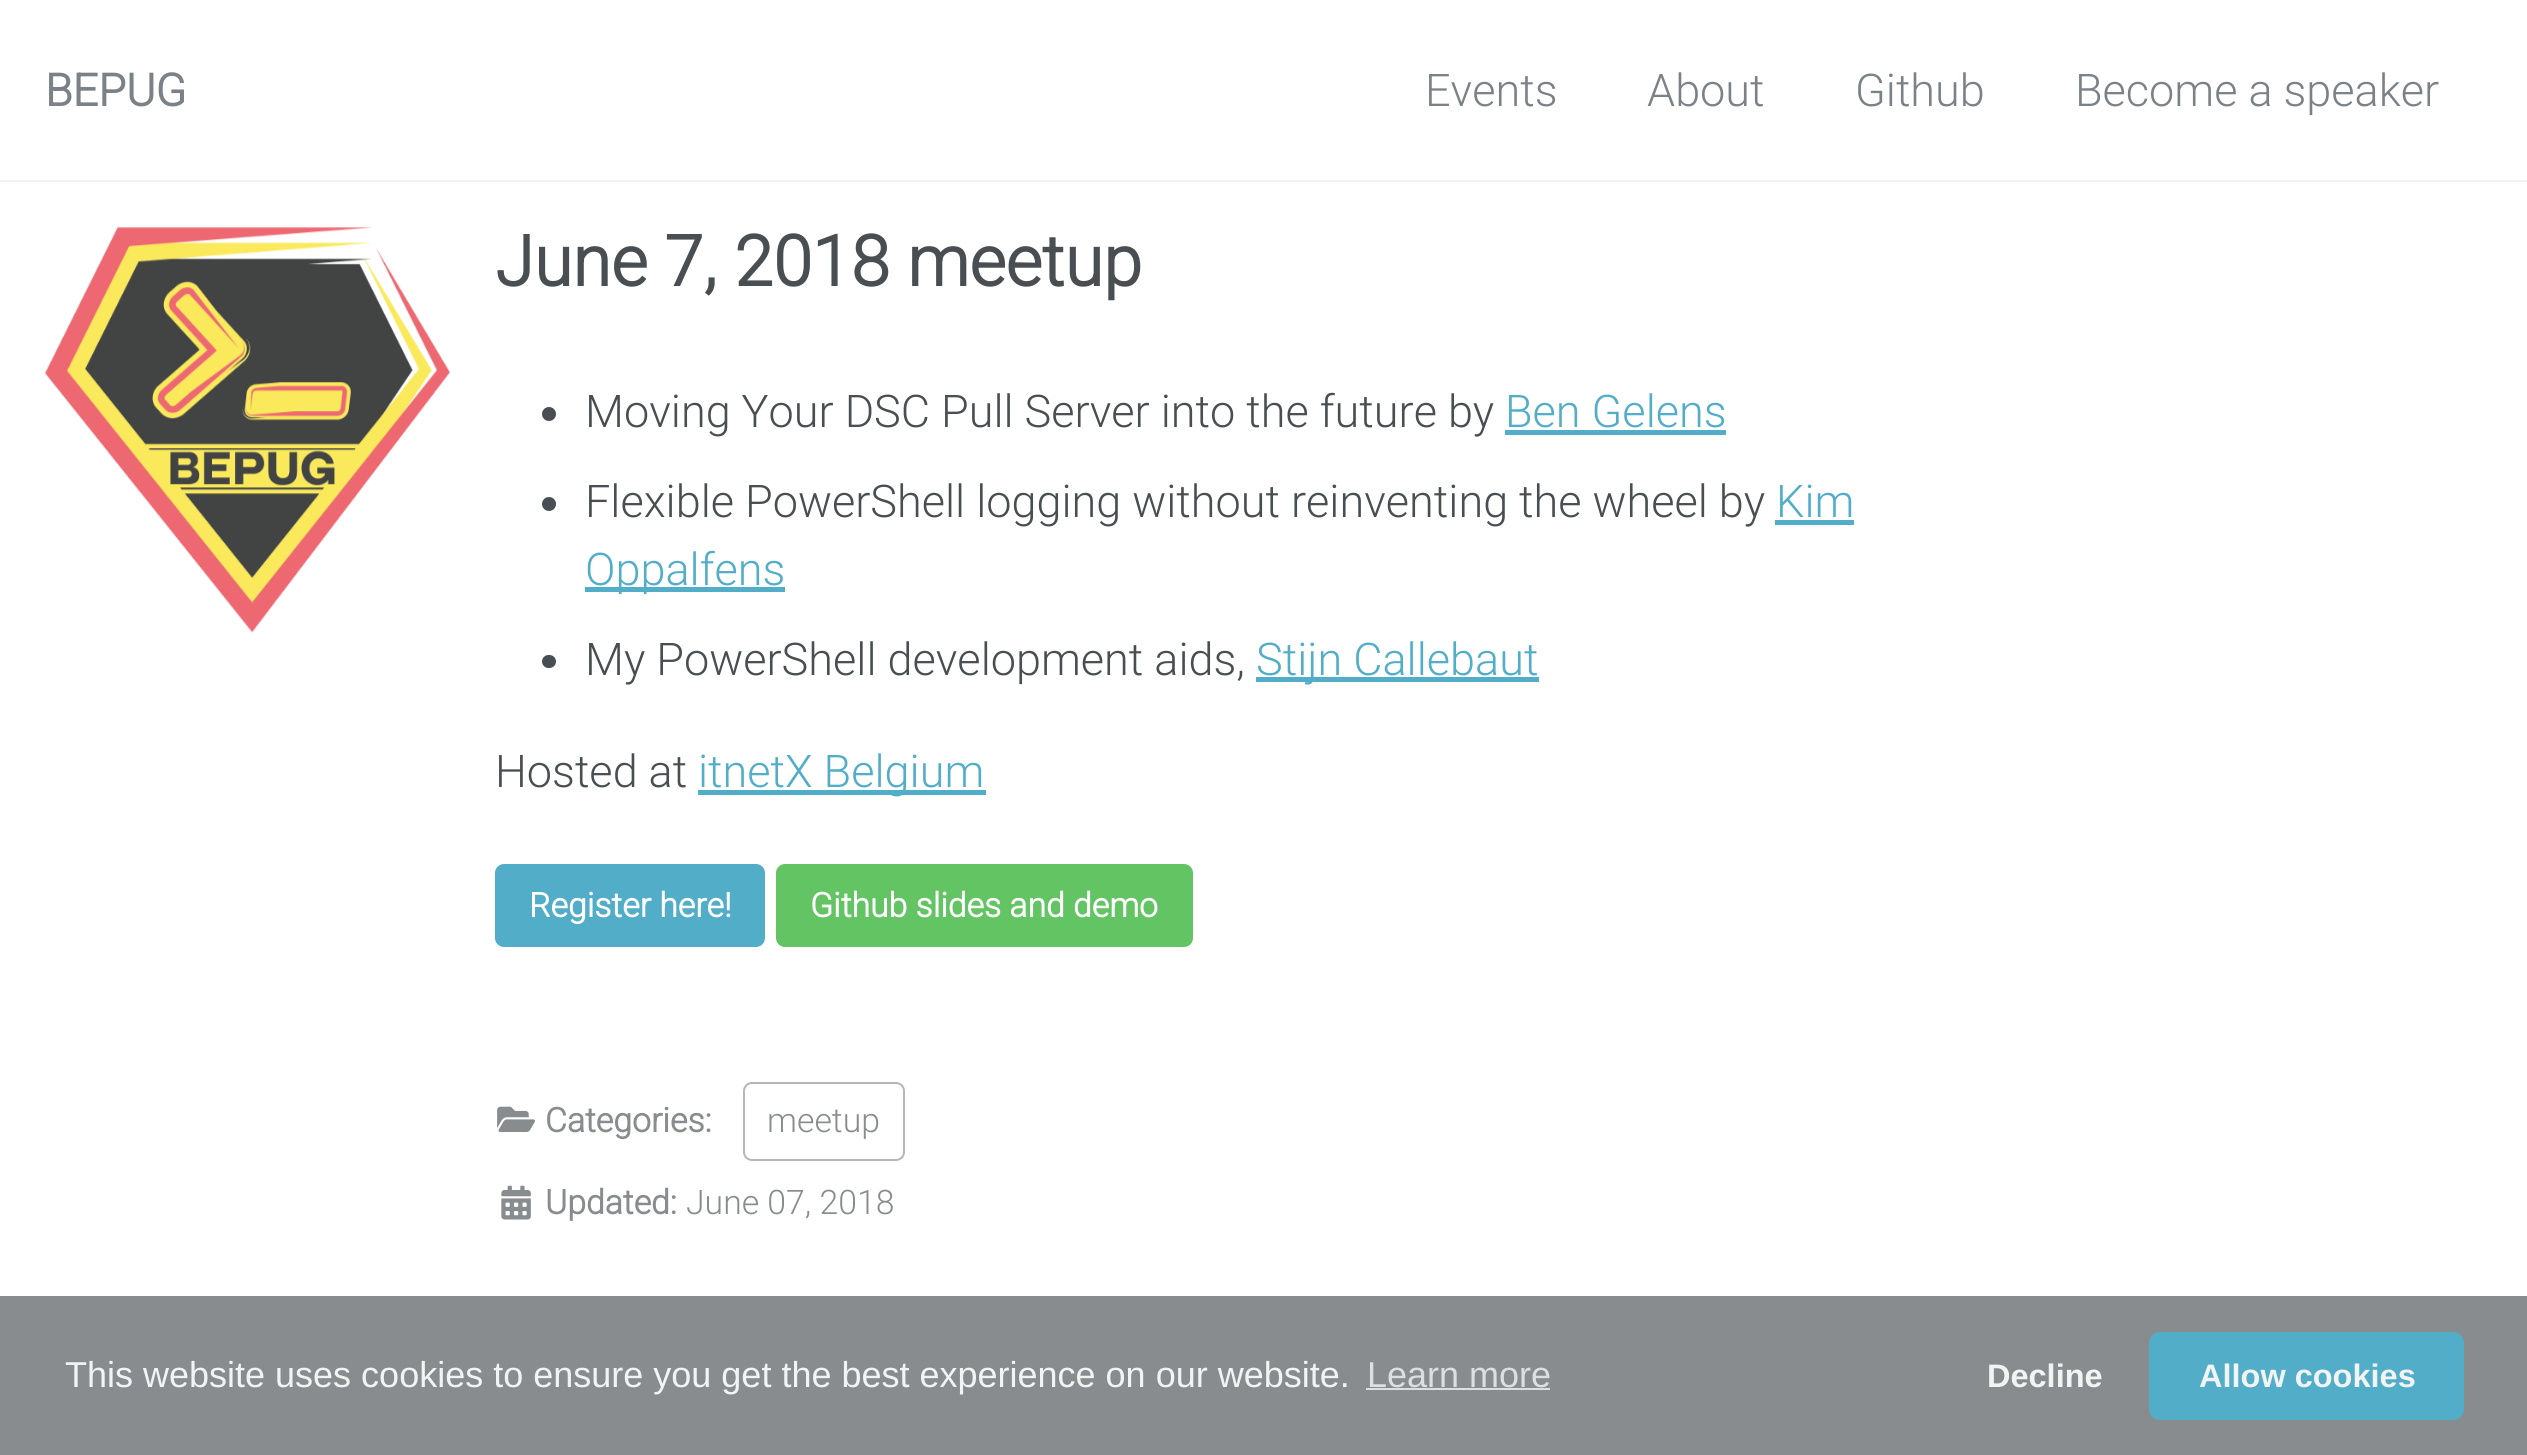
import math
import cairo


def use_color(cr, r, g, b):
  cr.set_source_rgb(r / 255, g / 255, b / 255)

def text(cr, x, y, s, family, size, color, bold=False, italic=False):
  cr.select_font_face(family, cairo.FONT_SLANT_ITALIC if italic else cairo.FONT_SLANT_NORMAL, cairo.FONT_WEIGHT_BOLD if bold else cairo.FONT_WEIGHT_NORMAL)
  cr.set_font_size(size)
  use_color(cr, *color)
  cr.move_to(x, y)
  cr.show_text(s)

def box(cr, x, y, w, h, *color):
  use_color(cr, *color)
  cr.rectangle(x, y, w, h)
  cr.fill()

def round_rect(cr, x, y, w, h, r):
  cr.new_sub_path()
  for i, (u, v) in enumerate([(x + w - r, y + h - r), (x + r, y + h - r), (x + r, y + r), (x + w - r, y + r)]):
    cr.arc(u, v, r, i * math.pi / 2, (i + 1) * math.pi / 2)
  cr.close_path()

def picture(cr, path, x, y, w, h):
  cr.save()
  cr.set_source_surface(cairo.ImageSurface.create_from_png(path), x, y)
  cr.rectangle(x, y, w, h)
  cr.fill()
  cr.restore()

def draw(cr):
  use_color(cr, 255, 255, 255)
  cr.paint()
  box(cr, 0, 180, 2527, 2, 242, 243, 243)
  picture(cr, "img_01.png", 45, 227, 405, 406)
  use_color(cr, 73, 78, 82)
  cr.arc(549, 414, 7, 0, 2 * math.pi)
  cr.fill()
  box(cr, 1505, 430, 221, 5, 82, 173, 200)
  use_color(cr, 73, 78, 82)
  cr.arc(549, 504, 7, 0, 2 * math.pi)
  cr.fill()
  box(cr, 1775, 520, 79, 5, 82, 173, 200)
  box(cr, 585, 587, 200, 5, 82, 173, 200)
  use_color(cr, 73, 78, 82)
  round_rect(cr, 542, 655, 14, 13, 6.5)
  cr.fill()
  box(cr, 1256, 677, 283, 5, 82, 173, 200)
  box(cr, 698, 790, 288, 5, 82, 173, 200)
  round_rect(cr, 495, 864, 270, 83, 9)
  cr.fill()
  use_color(cr, 98, 196, 98)
  round_rect(cr, 776, 864, 417, 83, 9)
  cr.fill()
  picture(cr, "img_02.png", 497, 1106, 38, 26)
  round_rect(cr, 744, 1083, 160, 77, 8)
  use_color(cr, 182, 182, 182)
  cr.stroke()
  picture(cr, "img_03.png", 501, 1185, 30, 35)
  box(cr, 0, 1296, 2527, 159, 137, 140, 143)
  box(cr, 1366, 1388, 184, 2, 221, 222, 223)
  use_color(cr, 82, 173, 200)
  round_rect(cr, 2149, 1332, 315, 88, 11)
  cr.fill()
  text(cr, 45, 106, "BEPUG", "Roboto", 45, (122, 130, 136), bold=True)
  text(cr, 1425, 106, "Events", "Roboto Light", 45, (122, 130, 136))
  text(cr, 1647, 106, "About", "Roboto Light", 45, (122, 130, 136))
  text(cr, 1855, 106, "Github", "Roboto Light", 45, (122, 130, 136))
  text(cr, 2075, 106, "Become a speaker", "Roboto Light", 45, (122, 130, 136))
  text(cr, 495, 286, "June 7, 2018 meetup", "Roboto", 70.25, (73, 78, 82), bold=True)
  text(cr, 585, 427, "Moving Your DSC Pull Server into the future by", "Roboto Light", 45, (73, 78, 82))
  text(cr, 1505, 427, "Ben Gelens", "Roboto Light", 45, (82, 173, 200))
  text(cr, 585, 517, "Flexible PowerShell logging without reinventing the wheel by", "Roboto Light", 45, (73, 78, 82))
  text(cr, 1776, 517, "Kim", "Roboto Light", 45, (82, 173, 200))
  text(cr, 585, 585, "Oppalfens", "Roboto Light", 45, (82, 173, 200))
  text(cr, 585, 675, "My PowerShell development aids,", "Roboto Light", 45, (73, 78, 82))
  text(cr, 1256, 675, "Stijn Callebaut", "Roboto Light", 45, (82, 173, 200))
  text(cr, 495, 787, "Hosted at", "Roboto Light", 45, (73, 78, 82))
  text(cr, 698, 787, "itnetX Belgium", "Roboto Light", 45, (82, 173, 200))
  text(cr, 529, 917, "Register here!", "Roboto", 33.75, (255, 255, 255), bold=True)
  text(cr, 810, 917, "Github slides and demo", "Roboto", 33.75, (255, 255, 255), bold=True)
  text(cr, 545, 1132, "Categories:", "Roboto", 33.75, (137, 140, 143), bold=True)
  text(cr, 767, 1132, "meetup", "Roboto Light", 33.75, (137, 140, 143))
  text(cr, 545, 1214, "Updated:", "Roboto", 33.75, (137, 140, 143), bold=True)
  text(cr, 686, 1214, "June 07, 2018", "Roboto Light", 33.75, (137, 140, 143))
  text(cr, 65, 1387, "This website uses cookies to ensure you get the best experience on our website.", "Liberation Sans", 36, (242, 243, 243))
  text(cr, 1367, 1387, "Learn more", "Liberation Sans", 36, (221, 222, 223))
  text(cr, 1987, 1387, "Decline", "Liberation Sans", 32.5, (242, 243, 243), bold=True)
  text(cr, 2199, 1387, "Allow cookies", "Liberation Sans", 32.5, (242, 243, 243), bold=True)


surface = cairo.ImageSurface(cairo.FORMAT_RGB24, 2527, 1455)
cr = cairo.Context(surface)
options = cairo.FontOptions()
options.set_hint_metrics(cairo.HINT_METRICS_OFF)
options.set_hint_style(cairo.HINT_STYLE_NONE)
cr.set_font_options(options)
cr.set_miter_limit(4)
draw(cr)
surface.write_to_png("out.png")
